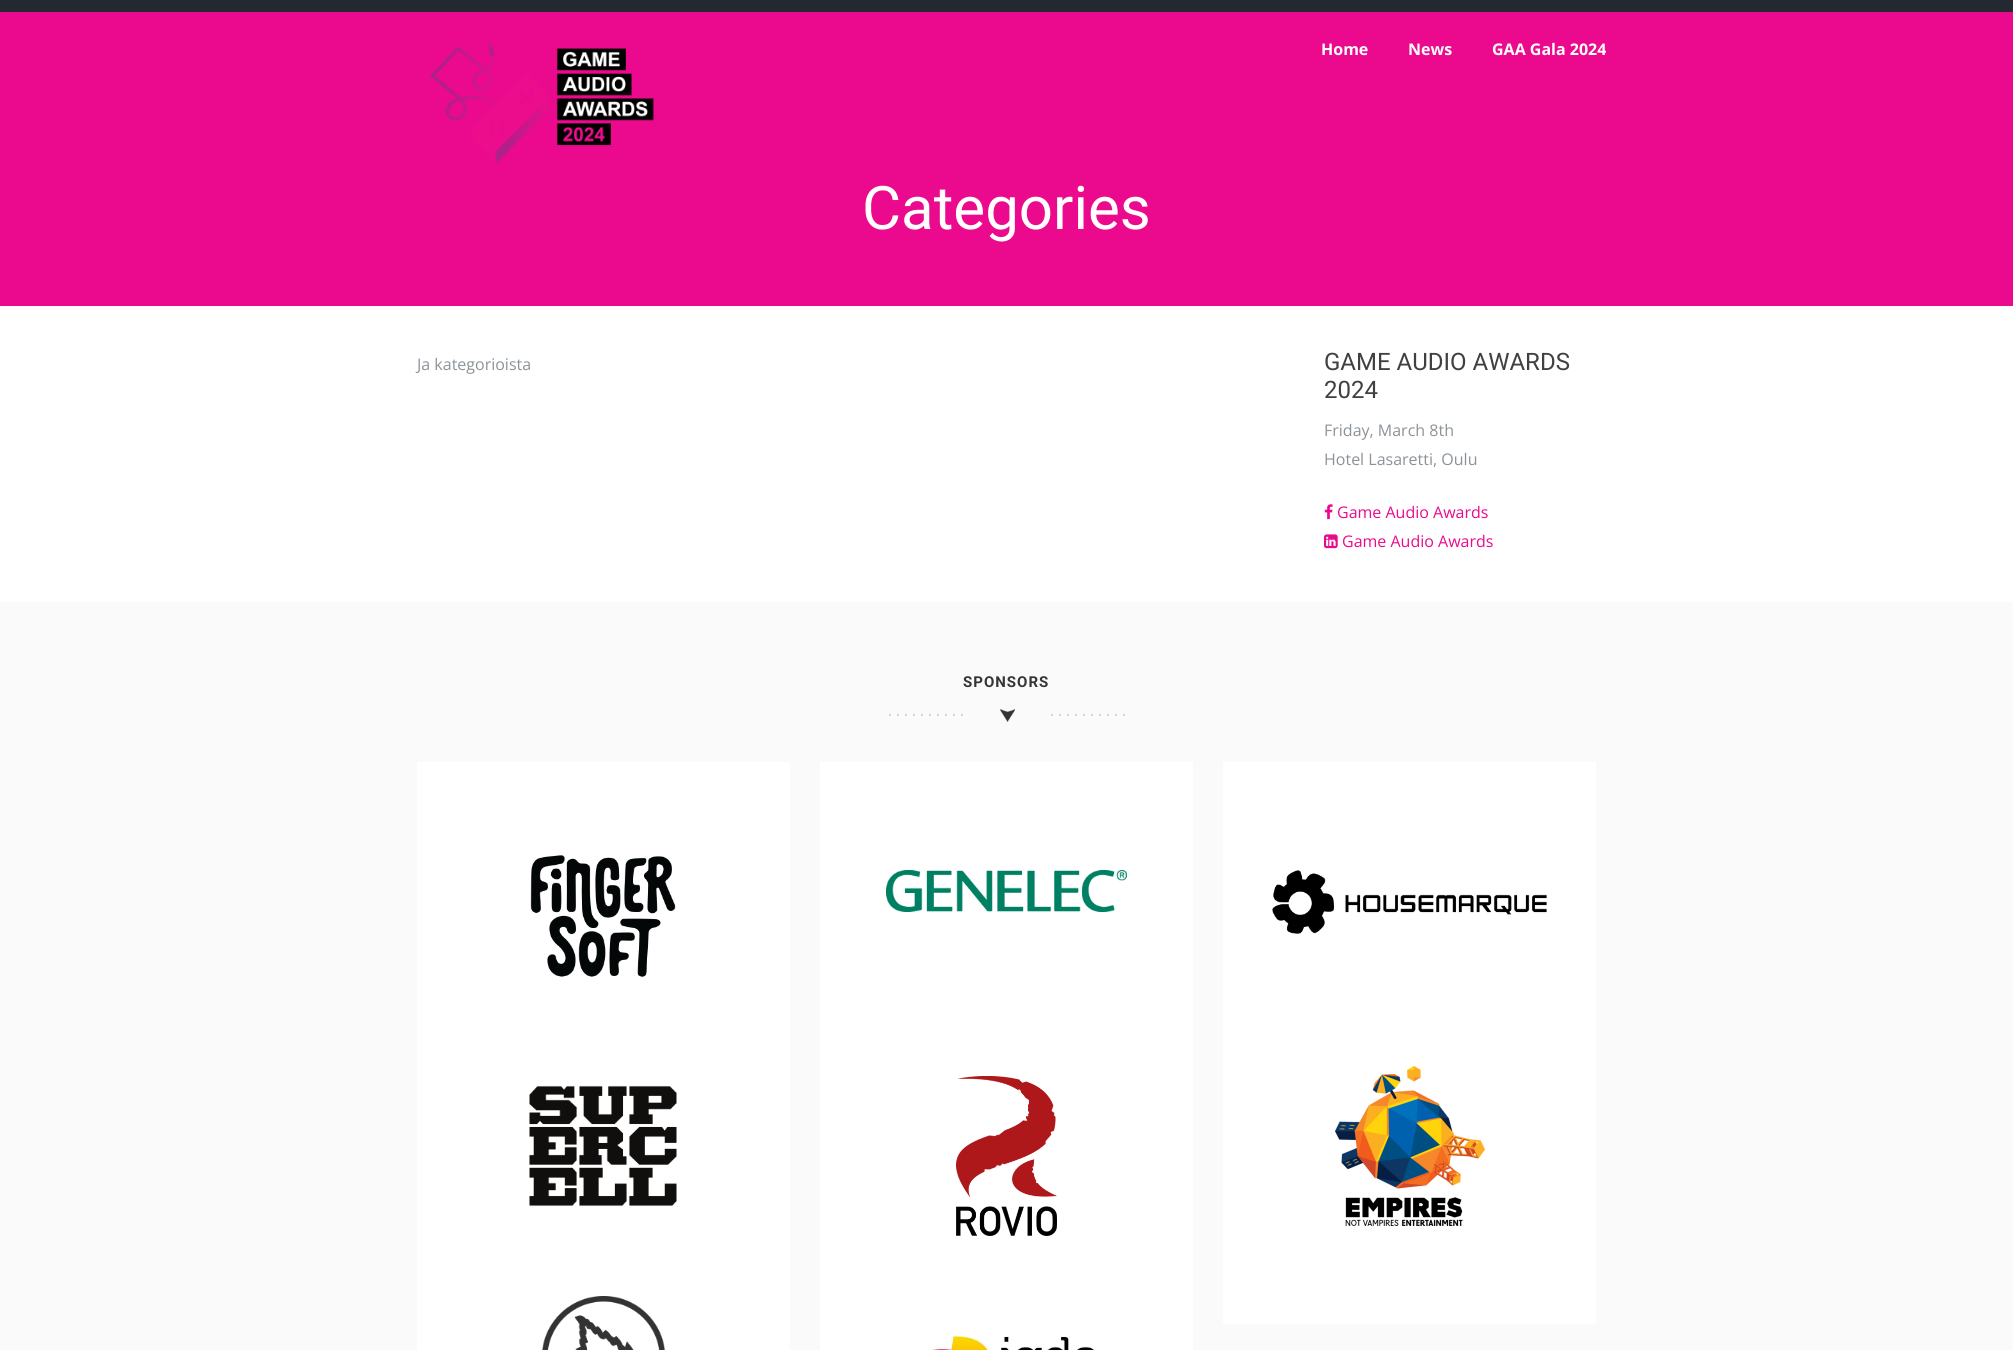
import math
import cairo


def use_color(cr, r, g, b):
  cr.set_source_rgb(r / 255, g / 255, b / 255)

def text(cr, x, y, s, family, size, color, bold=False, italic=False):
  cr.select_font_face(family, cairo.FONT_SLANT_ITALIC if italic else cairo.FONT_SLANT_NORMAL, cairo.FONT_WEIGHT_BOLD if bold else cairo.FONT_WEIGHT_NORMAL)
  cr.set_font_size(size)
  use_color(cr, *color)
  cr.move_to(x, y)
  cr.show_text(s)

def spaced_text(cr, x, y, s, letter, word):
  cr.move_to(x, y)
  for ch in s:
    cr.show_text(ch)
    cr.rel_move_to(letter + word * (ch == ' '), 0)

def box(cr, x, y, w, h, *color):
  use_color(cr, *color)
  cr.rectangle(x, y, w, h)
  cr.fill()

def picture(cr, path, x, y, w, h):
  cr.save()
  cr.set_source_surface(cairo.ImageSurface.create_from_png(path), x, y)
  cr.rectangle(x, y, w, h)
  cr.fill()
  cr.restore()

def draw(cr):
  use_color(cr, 255, 255, 255)
  cr.paint()
  box(cr, 0, 0, 2013, 12, 36, 40, 48)
  box(cr, 0, 12, 2013, 294, 235, 10, 141)
  picture(cr, "img_01.png", 429, 38, 225, 126)
  picture(cr, "img_02.png", 1324, 504, 9, 16)
  picture(cr, "img_03.png", 1324, 534, 14, 15)
  box(cr, 0, 602, 2013, 748, 250, 250, 250)
  picture(cr, "img_04.png", 889, 709, 236, 13)
  box(cr, 417, 762, 373, 588, 255, 255, 255)
  picture(cr, "img_05.png", 530, 855, 146, 122)
  picture(cr, "img_06.png", 529, 1085, 148, 122)
  picture(cr, "img_07.png", 542, 1296, 123, 54)
  box(cr, 820, 762, 373, 588, 255, 255, 255)
  picture(cr, "img_08.png", 886, 870, 241, 42)
  picture(cr, "img_09.png", 956, 1076, 101, 160)
  picture(cr, "img_10.png", 928, 1335, 167, 15)
  box(cr, 1223, 762, 373, 562, 255, 255, 255)
  picture(cr, "img_11.png", 1272, 870, 275, 64)
  picture(cr, "img_12.png", 1335, 1066, 150, 160)
  text(cr, 1321, 55, "Home", "Open Sans", 16, (255, 255, 255), bold=True)
  text(cr, 1408, 55, "News", "Open Sans", 16, (255, 255, 255), bold=True)
  text(cr, 1492, 55, "GAA Gala 2024", "Open Sans", 16, (255, 255, 255), bold=True)
  text(cr, 862, 229, "Categories", "Roboto", 60, (255, 255, 255))
  text(cr, 417, 370, "Ja kategorioista", "Open Sans", 16, (140, 147, 152))
  text(cr, 1324, 370, "GAME AUDIO AWARDS", "Roboto", 24, (64, 64, 64))
  text(cr, 1324, 398, "2024", "Roboto", 24, (64, 64, 64))
  text(cr, 1324, 436, "Friday, March 8th", "Open Sans", 16, (140, 147, 152))
  text(cr, 1324, 465, "Hotel Lasaretti, Oulu", "Open Sans", 16, (140, 147, 152))
  text(cr, 1337, 518, "Game Audio Awards", "Open Sans", 16, (235, 10, 141))
  text(cr, 1342, 547, "Game Audio Awards", "Open Sans", 16, (235, 10, 141))
  cr.select_font_face("Roboto", cairo.FONT_SLANT_NORMAL, cairo.FONT_WEIGHT_BOLD)
  cr.set_font_size(15)
  use_color(cr, 53, 53, 53)
  spaced_text(cr, 963, 687, "SPONSORS", 1, 0)


surface = cairo.ImageSurface(cairo.FORMAT_RGB24, 2013, 1350)
cr = cairo.Context(surface)
options = cairo.FontOptions()
options.set_hint_metrics(cairo.HINT_METRICS_OFF)
options.set_hint_style(cairo.HINT_STYLE_NONE)
cr.set_font_options(options)
cr.set_miter_limit(4)
draw(cr)
surface.write_to_png("out.png")
